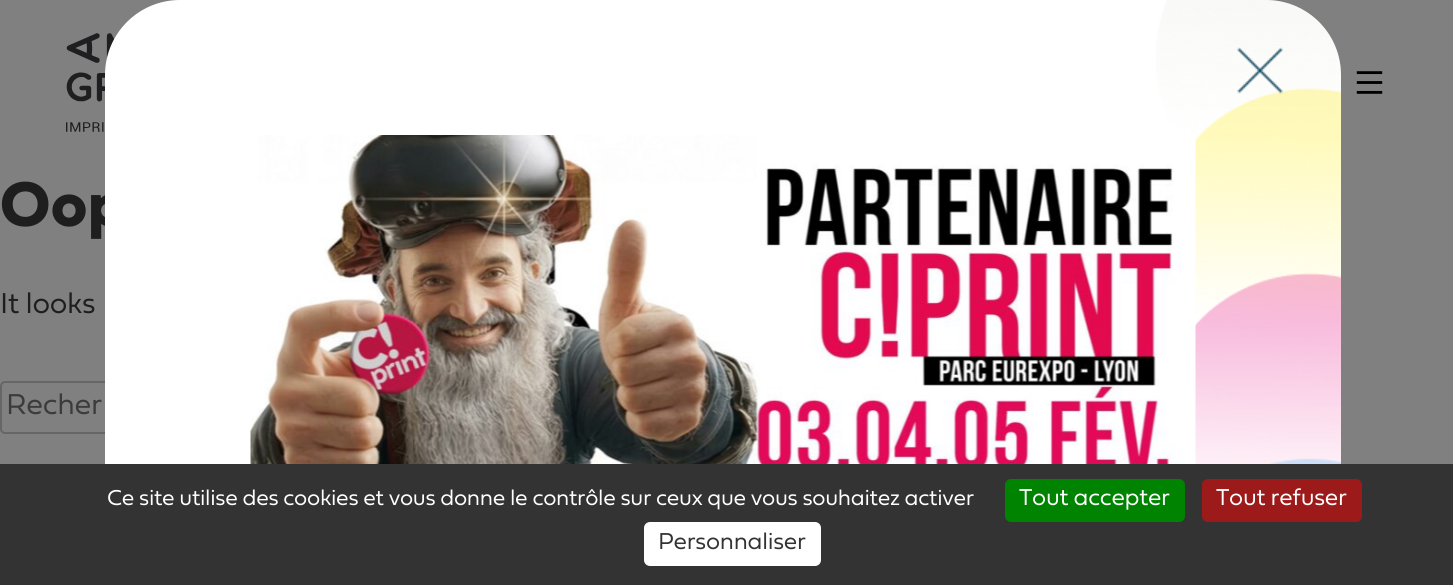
import math
import cairo


def use_color(cr, r, g, b):
  cr.set_source_rgb(r / 255, g / 255, b / 255)

def spaced_text(cr, x, y, s, letter, word):
  cr.move_to(x, y)
  for ch in s:
    cr.show_text(ch)
    cr.rel_move_to(letter + word * (ch == ' '), 0)

def box(cr, x, y, w, h, *color):
  use_color(cr, *color)
  cr.rectangle(x, y, w, h)
  cr.fill()

def round_rect(cr, x, y, w, h, r):
  cr.new_sub_path()
  for i, (u, v) in enumerate([(x + w - r, y + h - r), (x + r, y + h - r), (x + r, y + r), (x + w - r, y + r)]):
    cr.arc(u, v, r, i * math.pi / 2, (i + 1) * math.pi / 2)
  cr.close_path()

def picture(cr, path, x, y, w, h):
  cr.save()
  cr.set_source_surface(cairo.ImageSurface.create_from_png(path), x, y)
  cr.rectangle(x, y, w, h)
  cr.fill()
  cr.restore()

def draw(cr):
  use_color(cr, 128, 128, 128)
  cr.paint()
  picture(cr, "img_01.png", 66, 33, 49, 99)
  picture(cr, "img_02.png", 1356, 71, 27, 23)
  round_rect(cr, 1, 382, 402, 51, 4)
  use_color(cr, 102, 102, 102)
  cr.stroke()
  cr.select_font_face("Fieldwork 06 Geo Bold", cairo.FONT_SLANT_NORMAL, cairo.FONT_WEIGHT_BOLD)
  cr.set_font_size(66)
  use_color(cr, 30, 30, 30)
  spaced_text(cr, 0, 226, "Oop", 0.5, 0)
  cr.select_font_face("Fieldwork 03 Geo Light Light")
  cr.set_font_size(30)
  spaced_text(cr, 0, 313, "It looks", -0.3, 0)
  use_color(cr, 59, 59, 59)
  spaced_text(cr, 6, 414, "Recher", -0.3, 0)
  use_color(cr, 255, 255, 255)
  round_rect(cr, 105, 0, 1236, 585, 75)
  cr.fill()
  picture(cr, "img_03.png", 1155, 0, 186, 464)
  picture(cr, "img_04.png", 1237, 47, 46, 47)
  picture(cr, "img_05.png", 250, 135, 946, 329)
  box(cr, 0, 464, 1453, 121, 51, 51, 51)
  cr.set_font_size(22.5)
  use_color(cr, 255, 255, 255)
  spaced_text(cr, 107, 505, "Ce site utilise des cookies et vous donne le contrôle sur ceux que vous souhaitez activer", -0.3, 0)
  use_color(cr, 0, 131, 0)
  round_rect(cr, 1005, 479, 180, 43, 6)
  cr.fill()
  cr.set_font_size(24)
  use_color(cr, 255, 255, 255)
  spaced_text(cr, 1019, 505, "Tout accepter", -0.25, 0)
  use_color(cr, 156, 26, 26)
  round_rect(cr, 1202, 479, 160, 43, 6)
  cr.fill()
  use_color(cr, 255, 255, 255)
  spaced_text(cr, 1216, 505, "Tout refuser", -0.25, 0)
  round_rect(cr, 644, 522, 177, 44, 6)
  cr.fill()
  use_color(cr, 51, 51, 51)
  spaced_text(cr, 658, 549, "Personnaliser", -0.25, 0)


surface = cairo.ImageSurface(cairo.FORMAT_RGB24, 1453, 585)
cr = cairo.Context(surface)
options = cairo.FontOptions()
options.set_hint_metrics(cairo.HINT_METRICS_OFF)
options.set_hint_style(cairo.HINT_STYLE_NONE)
cr.set_font_options(options)
cr.set_miter_limit(4)
draw(cr)
surface.write_to_png("out.png")
